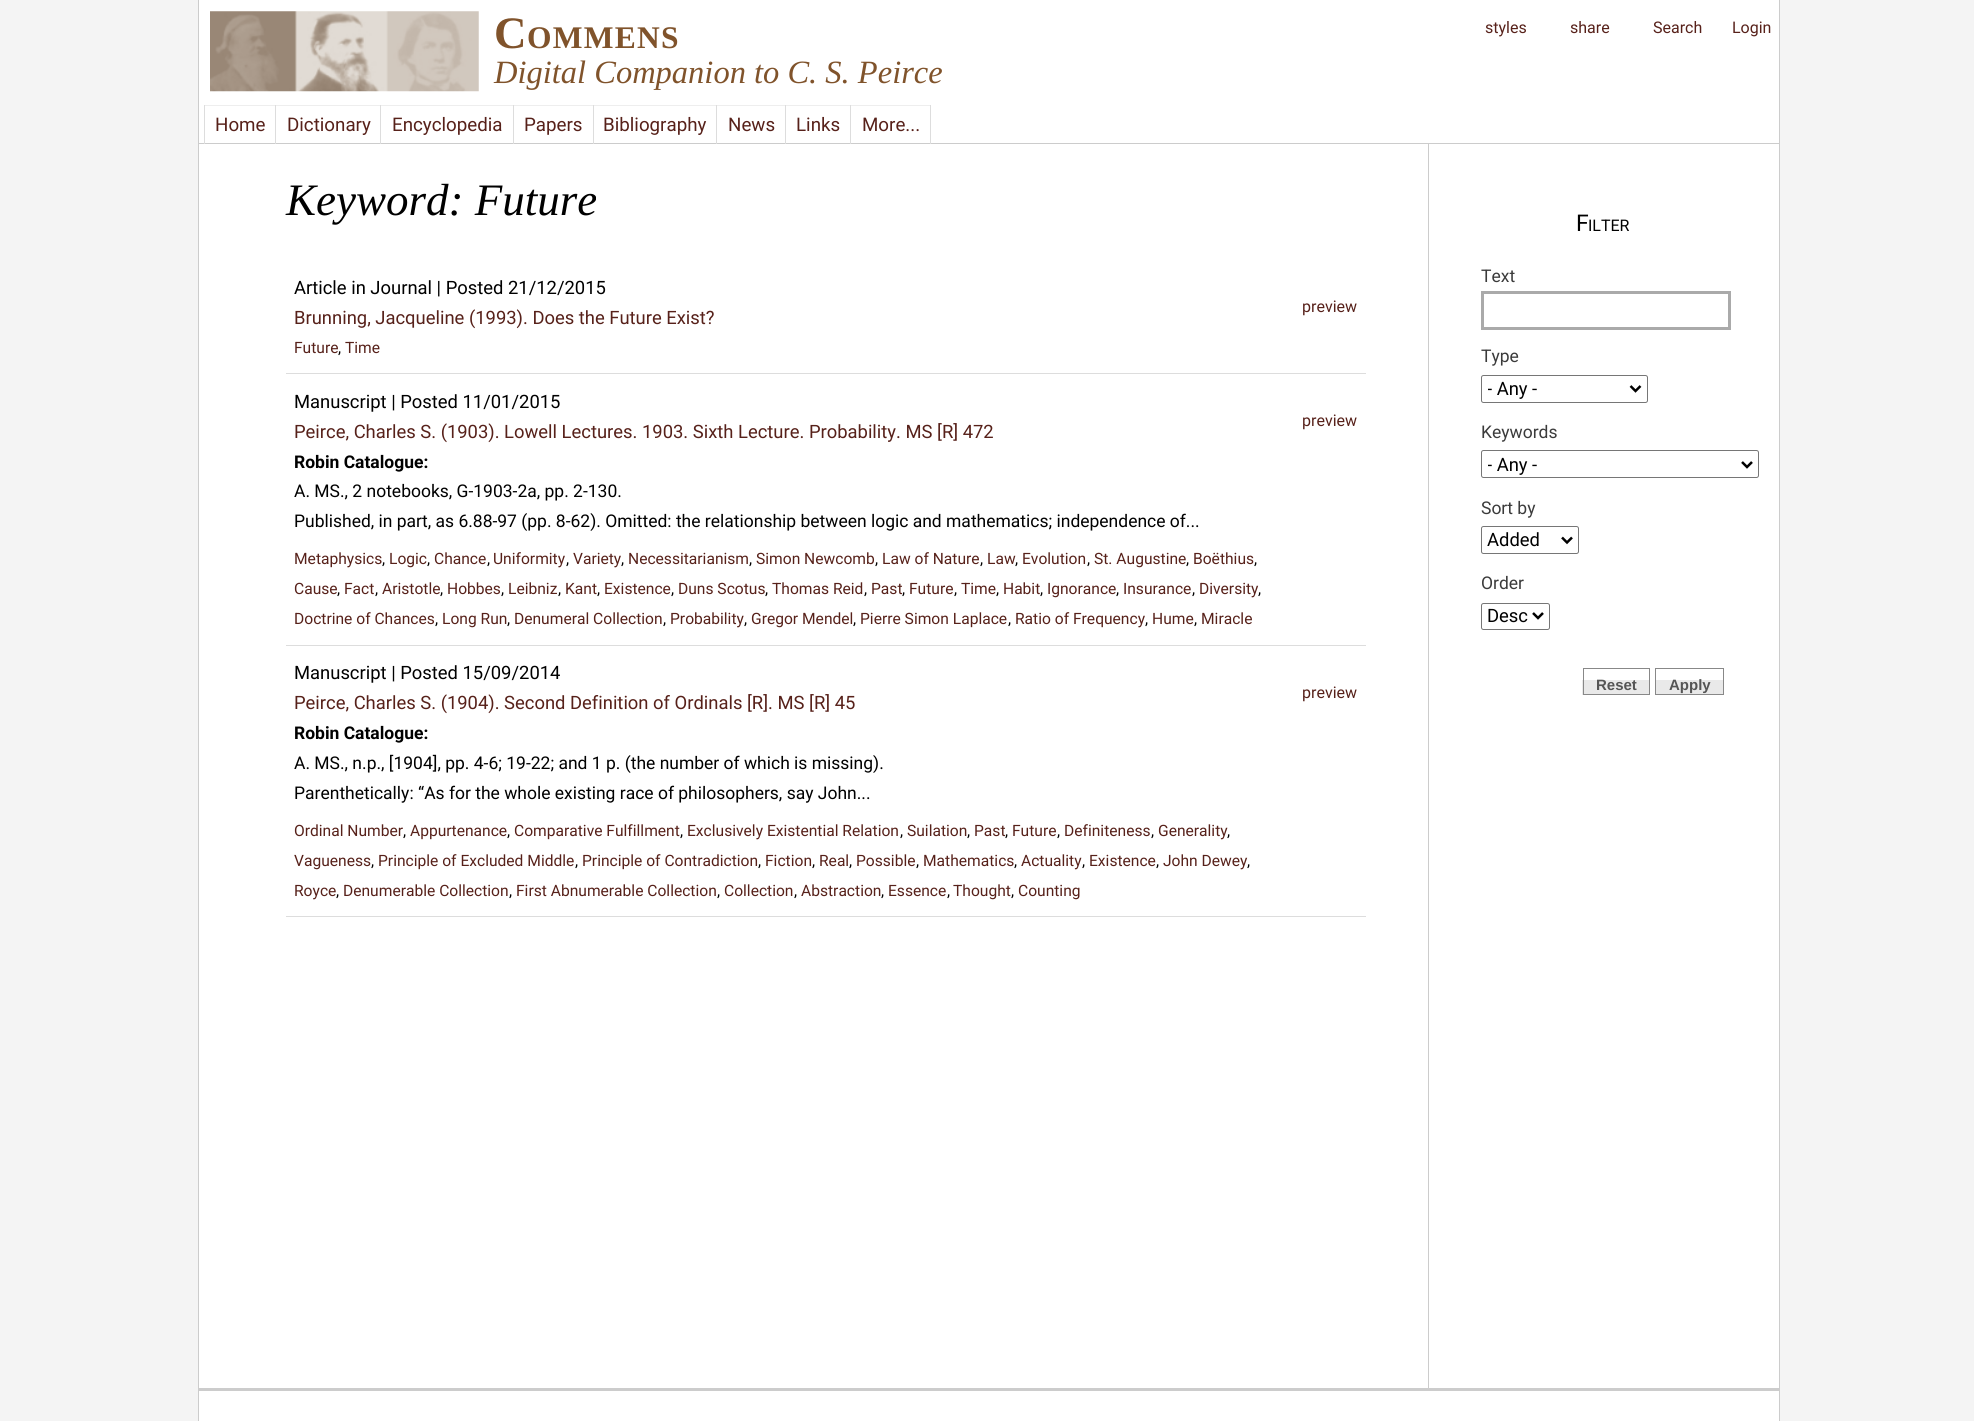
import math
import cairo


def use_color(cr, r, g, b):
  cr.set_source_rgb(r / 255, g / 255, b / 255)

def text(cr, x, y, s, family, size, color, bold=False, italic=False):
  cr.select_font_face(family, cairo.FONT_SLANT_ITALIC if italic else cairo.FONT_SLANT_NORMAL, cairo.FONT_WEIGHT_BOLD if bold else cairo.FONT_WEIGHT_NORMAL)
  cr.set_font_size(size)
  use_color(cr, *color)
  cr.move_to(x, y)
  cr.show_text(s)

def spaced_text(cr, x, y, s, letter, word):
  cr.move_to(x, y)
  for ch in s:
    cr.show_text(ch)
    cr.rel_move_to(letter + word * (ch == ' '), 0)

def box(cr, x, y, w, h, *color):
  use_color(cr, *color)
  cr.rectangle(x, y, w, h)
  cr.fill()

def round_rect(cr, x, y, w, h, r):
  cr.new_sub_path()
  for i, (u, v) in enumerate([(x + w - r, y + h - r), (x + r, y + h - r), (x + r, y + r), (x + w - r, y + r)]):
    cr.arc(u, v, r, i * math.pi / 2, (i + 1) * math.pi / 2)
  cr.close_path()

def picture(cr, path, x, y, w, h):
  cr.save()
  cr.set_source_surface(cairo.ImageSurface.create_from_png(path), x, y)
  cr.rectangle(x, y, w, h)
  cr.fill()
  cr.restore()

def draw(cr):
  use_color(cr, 244, 244, 244)
  cr.paint()
  box(cr, 199, 0, 1580, 143, 255, 255, 255)
  box(cr, 198, 0, 1, 105, 204, 204, 204)
  picture(cr, "img_01.png", 210, 11, 269, 81)
  box(cr, 198, 143, 1581, 1, 204, 204, 204)
  box(cr, 198, 105, 1, 39, 204, 204, 204)
  box(cr, 204, 105, 727, 1, 238, 238, 238)
  box(cr, 204, 105, 1, 39, 221, 221, 221)
  box(cr, 275, 105, 1, 39, 221, 221, 221)
  box(cr, 380, 105, 1, 39, 221, 221, 221)
  box(cr, 513, 105, 1, 39, 221, 221, 221)
  box(cr, 593, 105, 1, 39, 221, 221, 221)
  box(cr, 716, 105, 1, 39, 221, 221, 221)
  box(cr, 785, 105, 1, 39, 221, 221, 221)
  box(cr, 930, 105, 1, 39, 221, 221, 221)
  box(cr, 850, 105, 1, 39, 221, 221, 221)
  box(cr, 199, 144, 1580, 1244, 255, 255, 255)
  box(cr, 1779, 0, 1, 1388, 204, 204, 204)
  box(cr, 198, 144, 1, 1244, 204, 204, 204)
  box(cr, 1428, 144, 1, 1244, 204, 204, 204)
  box(cr, 286, 373, 1080, 1, 221, 221, 221)
  box(cr, 286, 645, 1080, 1, 221, 221, 221)
  box(cr, 286, 916, 1080, 1, 221, 221, 221)
  cr.rectangle(1482.5, 292.5, 247, 36)
  use_color(cr, 170, 170, 170)
  cr.set_line_width(3)
  cr.stroke()
  round_rect(cr, 1481.5, 375.5, 166, 27, 2)
  use_color(cr, 118, 118, 118)
  cr.set_line_width(1)
  cr.stroke()
  cr.new_path()
  cr.move_to(1630.5, 386)
  cr.line_to(1635.5, 391)
  cr.line_to(1640.5, 386)
  use_color(cr, 0, 0, 0)
  cr.set_line_width(2.5)
  cr.stroke()
  round_rect(cr, 1481.5, 450.5, 277, 27, 2)
  use_color(cr, 118, 118, 118)
  cr.set_line_width(1)
  cr.stroke()
  cr.new_path()
  cr.move_to(1742, 462)
  cr.line_to(1747, 467)
  cr.line_to(1752, 462)
  use_color(cr, 0, 0, 0)
  cr.set_line_width(2.5)
  cr.stroke()
  round_rect(cr, 1481.5, 526.5, 97, 27, 2)
  use_color(cr, 118, 118, 118)
  cr.set_line_width(1)
  cr.stroke()
  cr.new_path()
  cr.move_to(1562, 537.5)
  cr.line_to(1567, 542.5)
  cr.line_to(1572, 537.5)
  use_color(cr, 0, 0, 0)
  cr.set_line_width(2.5)
  cr.stroke()
  round_rect(cr, 1481.5, 603.5, 68, 26, 2)
  use_color(cr, 118, 118, 118)
  cr.set_line_width(1)
  cr.stroke()
  cr.new_path()
  cr.move_to(1533, 613)
  cr.line_to(1538, 618)
  cr.line_to(1543, 613)
  use_color(cr, 0, 0, 0)
  cr.set_line_width(2.5)
  cr.stroke()
  box(cr, 1582, 680, 67, 15, 233, 233, 233)
  cr.rectangle(1583.5, 668.5, 66, 26)
  use_color(cr, 136, 136, 136)
  cr.set_line_width(1)
  cr.stroke()
  box(cr, 1656, 680, 67, 14, 233, 233, 233)
  cr.rectangle(1655.5, 668.5, 68, 26)
  use_color(cr, 136, 136, 136)
  cr.stroke()
  box(cr, 199, 1391, 1580, 30, 255, 255, 255)
  box(cr, 198, 1388, 1582, 3, 204, 204, 204)
  box(cr, 1779, 1388, 1, 33, 204, 204, 204)
  box(cr, 198, 1388, 1, 33, 204, 204, 204)
  cr.select_font_face("Liberation Serif", cairo.FONT_SLANT_NORMAL, cairo.FONT_WEIGHT_BOLD)
  cr.set_font_size(45)
  use_color(cr, 128, 83, 43)
  spaced_text(cr, 494, 48, "C", 1.25, 0)
  cr.set_font_size(31.5)
  spaced_text(cr, 527, 48, "OMMENS", 1.25, 0)
  text(cr, 494, 83, "Digital Companion to C. S. Peirce", "Liberation Serif", 32.5, (128, 83, 43), italic=True)
  text(cr, 1485, 33, "styles", "Roboto", 16, (87, 33, 26))
  text(cr, 1570, 33, "share", "Roboto", 16, (87, 33, 26))
  text(cr, 1653, 33, "Search", "Roboto", 16, (87, 33, 26))
  text(cr, 1732, 33, "Login", "Roboto", 16, (87, 33, 26))
  text(cr, 215, 131, "Home", "Roboto", 18.75, (87, 33, 26))
  text(cr, 287, 131, "Dictionary", "Roboto", 18.75, (87, 33, 26))
  text(cr, 392, 131, "Encyclopedia", "Roboto", 18.75, (87, 33, 26))
  text(cr, 524, 131, "Papers", "Roboto", 18.75, (87, 33, 26))
  text(cr, 603, 131, "Bibliography", "Roboto", 18.75, (87, 33, 26))
  text(cr, 728, 131, "News", "Roboto", 18.75, (87, 33, 26))
  text(cr, 796, 131, "Links", "Roboto", 18.75, (87, 33, 26))
  text(cr, 862, 131, "More...", "Roboto", 18.75, (87, 33, 26))
  text(cr, 286, 215, "Keyword: Future", "Liberation Serif", 45, (0, 0, 0), italic=True)
  text(cr, 294, 294, "Article in Journal | Posted 21/12/2015", "Roboto", 18.4, (0, 0, 0))
  text(cr, 294, 324, "Brunning, Jacqueline (1993). Does the Future Exist?", "Roboto", 18.4, (87, 33, 26))
  text(cr, 294, 353, "Future", "Roboto", 15.6, (87, 33, 26))
  text(cr, 338, 353, ",", "Roboto", 15.6, (0, 0, 0))
  text(cr, 345, 353, "Time", "Roboto", 15.6, (87, 33, 26))
  text(cr, 1302, 312, "preview", "Roboto", 16, (87, 33, 26))
  text(cr, 294, 408, "Manuscript | Posted 11/01/2015", "Roboto", 18.4, (0, 0, 0))
  text(cr, 294, 438, "Peirce, Charles S. (1903). Lowell Lectures. 1903. Sixth Lecture. Probability. MS [R] 472", "Roboto", 18.4, (87, 33, 26))
  text(cr, 294, 468, "Robin Catalogue:", "Roboto", 17.48, (0, 0, 0), bold=True)
  text(cr, 294, 497, "A. MS., 2 notebooks, G-1903-2a, pp. 2-130.", "Roboto", 17.48, (0, 0, 0))
  text(cr, 294, 527, "Published, in part, as 6.88-97 (pp. 8-62). Omitted: the relationship between logic and mathematics; independence of...", "Roboto", 17.48, (0, 0, 0))
  text(cr, 294, 564, "Metaphysics", "Roboto", 15.6, (87, 33, 26))
  text(cr, 382, 564, ",", "Roboto", 15.6, (0, 0, 0))
  text(cr, 389, 564, "Logic", "Roboto", 15.6, (87, 33, 26))
  text(cr, 427, 564, ",", "Roboto", 15.6, (0, 0, 0))
  text(cr, 434, 564, "Chance", "Roboto", 15.6, (87, 33, 26))
  text(cr, 487, 564, ",", "Roboto", 15.6, (0, 0, 0))
  text(cr, 493, 564, "Uniformity", "Roboto", 15.6, (87, 33, 26))
  text(cr, 566, 564, ",", "Roboto", 15.6, (0, 0, 0))
  text(cr, 573, 564, "Variety", "Roboto", 15.6, (87, 33, 26))
  text(cr, 621, 564, ",", "Roboto", 15.6, (0, 0, 0))
  text(cr, 628, 564, "Necessitarianism", "Roboto", 15.6, (87, 33, 26))
  text(cr, 749, 564, ",", "Roboto", 15.6, (0, 0, 0))
  text(cr, 756, 564, "Simon Newcomb", "Roboto", 15.6, (87, 33, 26))
  text(cr, 875, 564, ",", "Roboto", 15.6, (0, 0, 0))
  text(cr, 882, 564, "Law of Nature", "Roboto", 15.6, (87, 33, 26))
  text(cr, 980, 564, ",", "Roboto", 15.6, (0, 0, 0))
  text(cr, 987, 564, "Law", "Roboto", 15.6, (87, 33, 26))
  text(cr, 1015, 564, ",", "Roboto", 15.6, (0, 0, 0))
  text(cr, 1022, 564, "Evolution", "Roboto", 15.6, (87, 33, 26))
  text(cr, 1087, 564, ",", "Roboto", 15.6, (0, 0, 0))
  text(cr, 1094, 564, "St. Augustine", "Roboto", 15.6, (87, 33, 26))
  text(cr, 1186, 564, ",", "Roboto", 15.6, (0, 0, 0))
  text(cr, 1193, 564, "Boëthius", "Roboto", 15.6, (87, 33, 26))
  text(cr, 1254, 564, ",", "Roboto", 15.6, (0, 0, 0))
  text(cr, 294, 594, "Cause", "Roboto", 15.6, (87, 33, 26))
  text(cr, 337, 594, ",", "Roboto", 15.6, (0, 0, 0))
  text(cr, 344, 594, "Fact", "Roboto", 15.6, (87, 33, 26))
  text(cr, 375, 594, ",", "Roboto", 15.6, (0, 0, 0))
  text(cr, 382, 594, "Aristotle", "Roboto", 15.6, (87, 33, 26))
  text(cr, 440, 594, ",", "Roboto", 15.6, (0, 0, 0))
  text(cr, 447, 594, "Hobbes", "Roboto", 15.6, (87, 33, 26))
  text(cr, 501, 594, ",", "Roboto", 15.6, (0, 0, 0))
  text(cr, 508, 594, "Leibniz", "Roboto", 15.6, (87, 33, 26))
  text(cr, 558, 594, ",", "Roboto", 15.6, (0, 0, 0))
  text(cr, 565, 594, "Kant", "Roboto", 15.6, (87, 33, 26))
  text(cr, 597, 594, ",", "Roboto", 15.6, (0, 0, 0))
  text(cr, 604, 594, "Existence", "Roboto", 15.6, (87, 33, 26))
  text(cr, 671, 594, ",", "Roboto", 15.6, (0, 0, 0))
  text(cr, 678, 594, "Duns Scotus", "Roboto", 15.6, (87, 33, 26))
  text(cr, 765, 594, ",", "Roboto", 15.6, (0, 0, 0))
  text(cr, 772, 594, "Thomas Reid", "Roboto", 15.6, (87, 33, 26))
  text(cr, 864, 594, ",", "Roboto", 15.6, (0, 0, 0))
  text(cr, 871, 594, "Past", "Roboto", 15.6, (87, 33, 26))
  text(cr, 902, 594, ",", "Roboto", 15.6, (0, 0, 0))
  text(cr, 909, 594, "Future", "Roboto", 15.6, (87, 33, 26))
  text(cr, 954, 594, ",", "Roboto", 15.6, (0, 0, 0))
  text(cr, 961, 594, "Time", "Roboto", 15.6, (87, 33, 26))
  text(cr, 996, 594, ",", "Roboto", 15.6, (0, 0, 0))
  text(cr, 1003, 594, "Habit", "Roboto", 15.6, (87, 33, 26))
  text(cr, 1040, 594, ",", "Roboto", 15.6, (0, 0, 0))
  text(cr, 1047, 594, "Ignorance", "Roboto", 15.6, (87, 33, 26))
  text(cr, 1116, 594, ",", "Roboto", 15.6, (0, 0, 0))
  text(cr, 1123, 594, "Insurance", "Roboto", 15.6, (87, 33, 26))
  text(cr, 1192, 594, ",", "Roboto", 15.6, (0, 0, 0))
  text(cr, 1199, 594, "Diversity", "Roboto", 15.6, (87, 33, 26))
  text(cr, 1258, 594, ",", "Roboto", 15.6, (0, 0, 0))
  text(cr, 294, 624, "Doctrine of Chances", "Roboto", 15.6, (87, 33, 26))
  text(cr, 435, 624, ",", "Roboto", 15.6, (0, 0, 0))
  text(cr, 442, 624, "Long Run", "Roboto", 15.6, (87, 33, 26))
  text(cr, 507, 624, ",", "Roboto", 15.6, (0, 0, 0))
  text(cr, 514, 624, "Denumeral Collection", "Roboto", 15.6, (87, 33, 26))
  text(cr, 663, 624, ",", "Roboto", 15.6, (0, 0, 0))
  text(cr, 670, 624, "Probability", "Roboto", 15.6, (87, 33, 26))
  text(cr, 744, 624, ",", "Roboto", 15.6, (0, 0, 0))
  text(cr, 751, 624, "Gregor Mendel", "Roboto", 15.6, (87, 33, 26))
  text(cr, 853, 624, ",", "Roboto", 15.6, (0, 0, 0))
  text(cr, 860, 624, "Pierre Simon Laplace", "Roboto", 15.6, (87, 33, 26))
  text(cr, 1008, 624, ",", "Roboto", 15.6, (0, 0, 0))
  text(cr, 1015, 624, "Ratio of Frequency", "Roboto", 15.6, (87, 33, 26))
  text(cr, 1145, 624, ",", "Roboto", 15.6, (0, 0, 0))
  text(cr, 1152, 624, "Hume", "Roboto", 15.6, (87, 33, 26))
  text(cr, 1194, 624, ",", "Roboto", 15.6, (0, 0, 0))
  text(cr, 1201, 624, "Miracle", "Roboto", 15.6, (87, 33, 26))
  text(cr, 1302, 426, "preview", "Roboto", 16, (87, 33, 26))
  text(cr, 294, 679, "Manuscript | Posted 15/09/2014", "Roboto", 18.4, (0, 0, 0))
  text(cr, 294, 709, "Peirce, Charles S. (1904). Second Definition of Ordinals [R]. MS [R] 45", "Roboto", 18.4, (87, 33, 26))
  text(cr, 294, 739, "Robin Catalogue:", "Roboto", 17.48, (0, 0, 0), bold=True)
  text(cr, 294, 769, "A. MS., n.p., [1904], pp. 4-6; 19-22; and 1 p. (the number of which is missing).", "Roboto", 17.48, (0, 0, 0))
  text(cr, 294, 799, "Parenthetically: “As for the whole existing race of philosophers, say John...", "Roboto", 17.48, (0, 0, 0))
  text(cr, 294, 836, "Ordinal Number", "Roboto", 15.6, (87, 33, 26))
  text(cr, 403, 836, ",", "Roboto", 15.6, (0, 0, 0))
  text(cr, 410, 836, "Appurtenance", "Roboto", 15.6, (87, 33, 26))
  text(cr, 507, 836, ",", "Roboto", 15.6, (0, 0, 0))
  text(cr, 514, 836, "Comparative Fulfillment", "Roboto", 15.6, (87, 33, 26))
  text(cr, 680, 836, ",", "Roboto", 15.6, (0, 0, 0))
  text(cr, 687, 836, "Exclusively Existential Relation", "Roboto", 15.6, (87, 33, 26))
  text(cr, 900, 836, ",", "Roboto", 15.6, (0, 0, 0))
  text(cr, 907, 836, "Suilation", "Roboto", 15.6, (87, 33, 26))
  text(cr, 967, 836, ",", "Roboto", 15.6, (0, 0, 0))
  text(cr, 974, 836, "Past", "Roboto", 15.6, (87, 33, 26))
  text(cr, 1005, 836, ",", "Roboto", 15.6, (0, 0, 0))
  text(cr, 1012, 836, "Future", "Roboto", 15.6, (87, 33, 26))
  text(cr, 1057, 836, ",", "Roboto", 15.6, (0, 0, 0))
  text(cr, 1064, 836, "Definiteness", "Roboto", 15.6, (87, 33, 26))
  text(cr, 1151, 836, ",", "Roboto", 15.6, (0, 0, 0))
  text(cr, 1158, 836, "Generality", "Roboto", 15.6, (87, 33, 26))
  text(cr, 1227, 836, ",", "Roboto", 15.6, (0, 0, 0))
  text(cr, 294, 866, "Vagueness", "Roboto", 15.6, (87, 33, 26))
  text(cr, 371, 866, ",", "Roboto", 15.6, (0, 0, 0))
  text(cr, 378, 866, "Principle of Excluded Middle", "Roboto", 15.6, (87, 33, 26))
  text(cr, 575, 866, ",", "Roboto", 15.6, (0, 0, 0))
  text(cr, 582, 866, "Principle of Contradiction", "Roboto", 15.6, (87, 33, 26))
  text(cr, 758, 866, ",", "Roboto", 15.6, (0, 0, 0))
  text(cr, 765, 866, "Fiction", "Roboto", 15.6, (87, 33, 26))
  text(cr, 812, 866, ",", "Roboto", 15.6, (0, 0, 0))
  text(cr, 819, 866, "Real", "Roboto", 15.6, (87, 33, 26))
  text(cr, 849, 866, ",", "Roboto", 15.6, (0, 0, 0))
  text(cr, 856, 866, "Possible", "Roboto", 15.6, (87, 33, 26))
  text(cr, 916, 866, ",", "Roboto", 15.6, (0, 0, 0))
  text(cr, 923, 866, "Mathematics", "Roboto", 15.6, (87, 33, 26))
  text(cr, 1014, 866, ",", "Roboto", 15.6, (0, 0, 0))
  text(cr, 1021, 866, "Actuality", "Roboto", 15.6, (87, 33, 26))
  text(cr, 1082, 866, ",", "Roboto", 15.6, (0, 0, 0))
  text(cr, 1089, 866, "Existence", "Roboto", 15.6, (87, 33, 26))
  text(cr, 1156, 866, ",", "Roboto", 15.6, (0, 0, 0))
  text(cr, 1163, 866, "John Dewey", "Roboto", 15.6, (87, 33, 26))
  text(cr, 1247, 866, ",", "Roboto", 15.6, (0, 0, 0))
  text(cr, 294, 896, "Royce", "Roboto", 15.6, (87, 33, 26))
  text(cr, 336, 896, ",", "Roboto", 15.6, (0, 0, 0))
  text(cr, 343, 896, "Denumerable Collection", "Roboto", 15.6, (87, 33, 26))
  text(cr, 509, 896, ",", "Roboto", 15.6, (0, 0, 0))
  text(cr, 516, 896, "First Abnumerable Collection", "Roboto", 15.6, (87, 33, 26))
  text(cr, 717, 896, ",", "Roboto", 15.6, (0, 0, 0))
  text(cr, 724, 896, "Collection", "Roboto", 15.6, (87, 33, 26))
  text(cr, 794, 896, ",", "Roboto", 15.6, (0, 0, 0))
  text(cr, 801, 896, "Abstraction", "Roboto", 15.6, (87, 33, 26))
  text(cr, 881, 896, ",", "Roboto", 15.6, (0, 0, 0))
  text(cr, 888, 896, "Essence", "Roboto", 15.6, (87, 33, 26))
  text(cr, 947, 896, ",", "Roboto", 15.6, (0, 0, 0))
  text(cr, 953, 896, "Thought", "Roboto", 15.6, (87, 33, 26))
  text(cr, 1011, 896, ",", "Roboto", 15.6, (0, 0, 0))
  text(cr, 1018, 896, "Counting", "Roboto", 15.6, (87, 33, 26))
  text(cr, 1302, 698, "preview", "Roboto", 16, (87, 33, 26))
  text(cr, 1576, 231, "F", "Roboto", 23, (0, 0, 0))
  text(cr, 1588, 231, "ILTER", "Roboto", 16, (0, 0, 0))
  text(cr, 1481, 282, "Text", "Roboto", 17.5, (59, 59, 59))
  text(cr, 1481, 362, "Type", "Roboto", 17.5, (59, 59, 59))
  cr.save()
  cr.rectangle(1488, 376, 138, 25)
  cr.clip()
  text(cr, 1487, 395, "- Any -", "Roboto", 18.4, (0, 0, 0))
  cr.restore()
  text(cr, 1481, 438, "Keywords", "Roboto", 17.5, (59, 59, 59))
  cr.save()
  cr.rectangle(1488, 451, 250, 25)
  cr.clip()
  text(cr, 1487, 471, "- Any -", "Roboto", 18.4, (0, 0, 0))
  cr.restore()
  text(cr, 1481, 514, "Sort by", "Roboto", 17.5, (59, 59, 59))
  text(cr, 1487, 546, "Added", "Roboto", 18.4, (0, 0, 0))
  text(cr, 1481, 589, "Order", "Roboto", 17.5, (59, 59, 59))
  text(cr, 1487, 622, "Desc", "Roboto", 18.4, (0, 0, 0))
  text(cr, 1596, 690, "Reset", "Liberation Sans", 15, (85, 85, 85), bold=True)
  text(cr, 1669, 690, "Apply", "Liberation Sans", 15, (85, 85, 85), bold=True)


surface = cairo.ImageSurface(cairo.FORMAT_RGB24, 1974, 1421)
cr = cairo.Context(surface)
options = cairo.FontOptions()
options.set_hint_metrics(cairo.HINT_METRICS_OFF)
options.set_hint_style(cairo.HINT_STYLE_NONE)
cr.set_font_options(options)
cr.set_miter_limit(4)
draw(cr)
surface.write_to_png("out.png")
